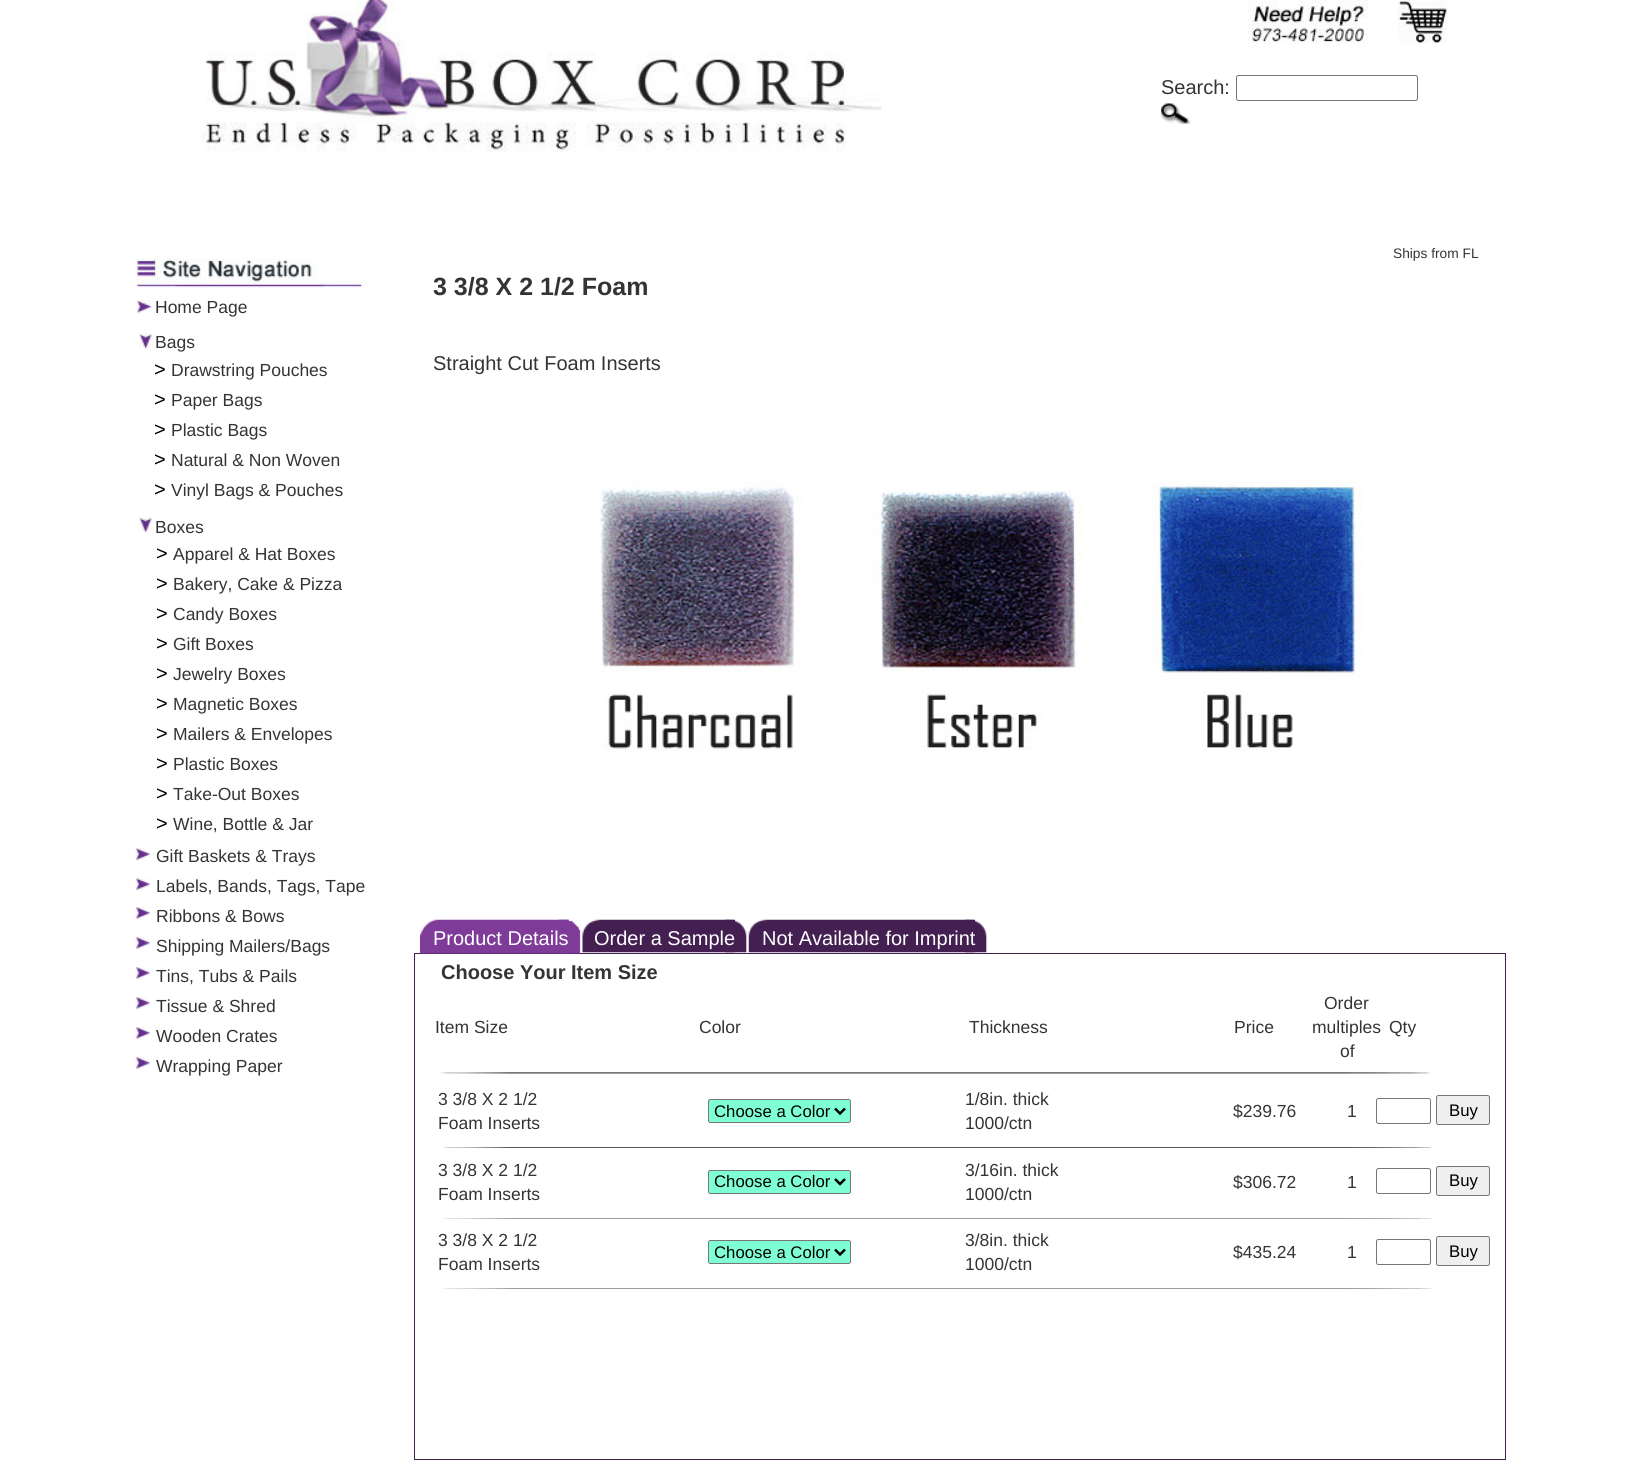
import math
import cairo


def use_color(cr, r, g, b):
  cr.set_source_rgb(r / 255, g / 255, b / 255)

def text(cr, x, y, s, family, size, color, bold=False, italic=False):
  cr.select_font_face(family, cairo.FONT_SLANT_ITALIC if italic else cairo.FONT_SLANT_NORMAL, cairo.FONT_WEIGHT_BOLD if bold else cairo.FONT_WEIGHT_NORMAL)
  cr.set_font_size(size)
  use_color(cr, *color)
  cr.move_to(x, y)
  cr.show_text(s)

def round_rect(cr, x, y, w, h, r):
  cr.new_sub_path()
  for i, (u, v) in enumerate([(x + w - r, y + h - r), (x + r, y + h - r), (x + r, y + r), (x + w - r, y + r)]):
    cr.arc(u, v, r, i * math.pi / 2, (i + 1) * math.pi / 2)
  cr.close_path()

def picture(cr, path, x, y, w, h):
  cr.save()
  cr.set_source_surface(cairo.ImageSurface.create_from_png(path), x, y)
  cr.rectangle(x, y, w, h)
  cr.fill()
  cr.restore()

def draw(cr):
  use_color(cr, 255, 255, 255)
  cr.paint()
  picture(cr, "img_01.png", 198, 0, 684, 153)
  picture(cr, "img_02.png", 1247, 0, 121, 44)
  picture(cr, "img_03.png", 1397, 1, 50, 43)
  round_rect(cr, 1236.5, 75.5, 181, 25, 2)
  use_color(cr, 118, 118, 118)
  cr.set_line_width(1)
  cr.stroke()
  picture(cr, "img_04.png", 1161, 103, 30, 21)
  picture(cr, "img_05.png", 136, 258, 226, 30)
  picture(cr, "img_06.png", 136, 300, 16, 14)
  picture(cr, "img_07.png", 139, 333, 14, 16)
  picture(cr, "img_08.png", 139, 517, 14, 16)
  picture(cr, "img_09.png", 135, 847, 15, 14)
  picture(cr, "img_09.png", 135, 877, 15, 14)
  picture(cr, "img_10.png", 135, 906, 15, 14)
  picture(cr, "img_10.png", 135, 936, 15, 14)
  picture(cr, "img_10.png", 135, 966, 15, 14)
  picture(cr, "img_11.png", 135, 996, 15, 14)
  picture(cr, "img_10.png", 135, 1026, 15, 14)
  picture(cr, "img_10.png", 135, 1056, 15, 14)
  picture(cr, "img_12.png", 594, 481, 768, 270)
  cr.rectangle(414.5, 953.5, 1091, 506)
  use_color(cr, 68, 31, 82)
  cr.stroke()
  picture(cr, "img_13.png", 558, 919, 23, 35)
  picture(cr, "img_14.png", 420, 919, 149, 35)
  picture(cr, "img_15.png", 725, 919, 22, 34)
  picture(cr, "img_16.png", 582, 919, 153, 34)
  picture(cr, "img_17.png", 964, 919, 23, 34)
  picture(cr, "img_18.png", 748, 919, 227, 34)
  picture(cr, "img_19.png", 440, 1071, 991, 3)
  use_color(cr, 127, 255, 212)
  round_rect(cr, 708.5, 1099.5, 142, 23, 2)
  cr.fill_preserve()
  use_color(cr, 118, 118, 118)
  cr.stroke()
  cr.new_path()
  cr.move_to(835, 1108.5)
  cr.line_to(840, 1113.5)
  cr.line_to(845, 1108.5)
  use_color(cr, 0, 0, 0)
  cr.set_line_width(2.5)
  cr.stroke()
  round_rect(cr, 1376.5, 1098.5, 54, 25, 2)
  use_color(cr, 118, 118, 118)
  cr.set_line_width(1)
  cr.stroke()
  use_color(cr, 239, 239, 239)
  round_rect(cr, 1436.5, 1095.5, 53, 29, 2)
  cr.fill_preserve()
  use_color(cr, 118, 118, 118)
  cr.stroke()
  picture(cr, "img_20.png", 442, 1147, 991, 1)
  use_color(cr, 127, 255, 212)
  round_rect(cr, 708.5, 1170.5, 142, 23, 2)
  cr.fill_preserve()
  use_color(cr, 118, 118, 118)
  cr.stroke()
  cr.new_path()
  cr.move_to(835, 1179)
  cr.line_to(840, 1184)
  cr.line_to(845, 1179)
  use_color(cr, 0, 0, 0)
  cr.set_line_width(2.5)
  cr.stroke()
  round_rect(cr, 1376.5, 1168.5, 54, 25, 2)
  use_color(cr, 118, 118, 118)
  cr.set_line_width(1)
  cr.stroke()
  use_color(cr, 239, 239, 239)
  round_rect(cr, 1436.5, 1166.5, 53, 29, 2)
  cr.fill_preserve()
  use_color(cr, 118, 118, 118)
  cr.stroke()
  picture(cr, "img_21.png", 438, 1218, 995, 2)
  use_color(cr, 127, 255, 212)
  round_rect(cr, 708.5, 1240.5, 142, 23, 2)
  cr.fill_preserve()
  use_color(cr, 118, 118, 118)
  cr.stroke()
  cr.new_path()
  cr.move_to(835, 1249.5)
  cr.line_to(840, 1254.5)
  cr.line_to(845, 1249.5)
  use_color(cr, 0, 0, 0)
  cr.set_line_width(2.5)
  cr.stroke()
  round_rect(cr, 1376.5, 1239.5, 54, 25, 2)
  use_color(cr, 118, 118, 118)
  cr.set_line_width(1)
  cr.stroke()
  use_color(cr, 239, 239, 239)
  round_rect(cr, 1436.5, 1236.5, 53, 29, 2)
  cr.fill_preserve()
  use_color(cr, 118, 118, 118)
  cr.stroke()
  picture(cr, "img_21.png", 438, 1288, 995, 2)
  text(cr, 1161, 94, "Search:", "Liberation Sans", 20, (53, 52, 52))
  text(cr, 155, 313, "Home Page", "Liberation Sans", 17.5, (53, 52, 52))
  text(cr, 155, 348, "Bags", "Liberation Sans", 17.5, (53, 52, 52))
  text(cr, 154, 376, ">", "Liberation Sans", 20, (0, 0, 0))
  text(cr, 171, 376, "Drawstring Pouches", "Liberation Sans", 17.5, (53, 52, 52))
  text(cr, 154, 406, ">", "Liberation Sans", 20, (0, 0, 0))
  text(cr, 171, 406, "Paper Bags", "Liberation Sans", 17.5, (53, 52, 52))
  text(cr, 154, 436, ">", "Liberation Sans", 20, (0, 0, 0))
  text(cr, 171, 436, "Plastic Bags", "Liberation Sans", 17.5, (53, 52, 52))
  text(cr, 154, 466, ">", "Liberation Sans", 20, (0, 0, 0))
  text(cr, 171, 466, "Natural & Non Woven", "Liberation Sans", 17.5, (53, 52, 52))
  text(cr, 154, 496, ">", "Liberation Sans", 20, (0, 0, 0))
  text(cr, 171, 496, "Vinyl Bags & Pouches", "Liberation Sans", 17.5, (53, 52, 52))
  text(cr, 155, 533, "Boxes", "Liberation Sans", 17.5, (53, 52, 52))
  text(cr, 156, 560, ">", "Liberation Sans", 20, (0, 0, 0))
  text(cr, 173, 560, "Apparel & Hat Boxes", "Liberation Sans", 17.5, (53, 52, 52))
  text(cr, 156, 590, ">", "Liberation Sans", 20, (0, 0, 0))
  text(cr, 173, 590, "Bakery, Cake & Pizza", "Liberation Sans", 17.5, (53, 52, 52))
  text(cr, 156, 620, ">", "Liberation Sans", 20, (0, 0, 0))
  text(cr, 173, 620, "Candy Boxes", "Liberation Sans", 17.5, (53, 52, 52))
  text(cr, 156, 650, ">", "Liberation Sans", 20, (0, 0, 0))
  text(cr, 173, 650, "Gift Boxes", "Liberation Sans", 17.5, (53, 52, 52))
  text(cr, 156, 680, ">", "Liberation Sans", 20, (0, 0, 0))
  text(cr, 173, 680, "Jewelry Boxes", "Liberation Sans", 17.5, (53, 52, 52))
  text(cr, 156, 710, ">", "Liberation Sans", 20, (0, 0, 0))
  text(cr, 173, 710, "Magnetic Boxes", "Liberation Sans", 17.5, (53, 52, 52))
  text(cr, 156, 740, ">", "Liberation Sans", 20, (0, 0, 0))
  text(cr, 173, 740, "Mailers & Envelopes", "Liberation Sans", 17.5, (53, 52, 52))
  text(cr, 156, 770, ">", "Liberation Sans", 20, (0, 0, 0))
  text(cr, 173, 770, "Plastic Boxes", "Liberation Sans", 17.5, (53, 52, 52))
  text(cr, 156, 800, ">", "Liberation Sans", 20, (0, 0, 0))
  text(cr, 173, 800, "Take-Out Boxes", "Liberation Sans", 17.5, (53, 52, 52))
  text(cr, 156, 830, ">", "Liberation Sans", 20, (0, 0, 0))
  text(cr, 173, 830, "Wine, Bottle & Jar", "Liberation Sans", 17.5, (53, 52, 52))
  text(cr, 156, 862, "Gift Baskets & Trays", "Liberation Sans", 17.5, (53, 52, 52))
  text(cr, 156, 892, "Labels, Bands, Tags, Tape", "Liberation Sans", 17.5, (53, 52, 52))
  text(cr, 156, 922, "Ribbons & Bows", "Liberation Sans", 17.5, (53, 52, 52))
  text(cr, 156, 952, "Shipping Mailers/Bags", "Liberation Sans", 17.5, (53, 52, 52))
  text(cr, 156, 982, "Tins, Tubs & Pails", "Liberation Sans", 17.5, (53, 52, 52))
  text(cr, 156, 1012, "Tissue & Shred", "Liberation Sans", 17.5, (53, 52, 52))
  text(cr, 156, 1042, "Wooden Crates", "Liberation Sans", 17.5, (53, 52, 52))
  text(cr, 156, 1072, "Wrapping Paper", "Liberation Sans", 17.5, (53, 52, 52))
  text(cr, 1393, 258, "Ships from FL", "Liberation Sans", 13.75, (53, 52, 52))
  text(cr, 433, 295, "3 3/8 X 2 1/2 Foam", "Liberation Sans", 25, (53, 52, 52), bold=True)
  text(cr, 433, 370, "Straight Cut Foam Inserts", "Liberation Sans", 20, (53, 52, 52))
  text(cr, 433, 945, "Product Details", "Liberation Sans", 20, (255, 255, 255))
  text(cr, 594, 945, "Order a Sample", "Liberation Sans", 20, (255, 255, 255))
  text(cr, 762, 945, "Not Available for Imprint", "Liberation Sans", 20, (255, 255, 255))
  text(cr, 441, 979, "Choose Your Item Size", "Liberation Sans", 20, (53, 52, 52), bold=True)
  text(cr, 435, 1033, "Item Size", "Liberation Sans", 17.5, (53, 52, 52))
  text(cr, 699, 1033, "Color", "Liberation Sans", 17.5, (53, 52, 52))
  text(cr, 969, 1033, "Thickness", "Liberation Sans", 17.5, (53, 52, 52))
  text(cr, 1234, 1033, "Price", "Liberation Sans", 17.5, (53, 52, 52))
  text(cr, 1324, 1009, "Order", "Liberation Sans", 17.5, (53, 52, 52))
  text(cr, 1312, 1033, "multiples", "Liberation Sans", 17.5, (53, 52, 52))
  text(cr, 1340, 1057, "of", "Liberation Sans", 17.5, (53, 52, 52))
  text(cr, 1389, 1033, "Qty", "Liberation Sans", 17.5, (53, 52, 52))
  text(cr, 438, 1105, "3 3/8 X 2 1/2", "Liberation Sans", 17.5, (53, 52, 52))
  text(cr, 438, 1129, "Foam Inserts", "Liberation Sans", 17.5, (53, 52, 52))
  text(cr, 714, 1117, "Choose a Color", "Liberation Sans", 16.75, (0, 0, 0))
  text(cr, 965, 1105, "1/8in. thick", "Liberation Sans", 17.5, (53, 52, 52))
  text(cr, 965, 1129, "1000/ctn", "Liberation Sans", 17.5, (53, 52, 52))
  text(cr, 1233, 1117, "$239.76", "Liberation Sans", 17.5, (53, 52, 52))
  text(cr, 1347, 1117, "1", "Liberation Sans", 17.5, (53, 52, 52))
  text(cr, 1449, 1116, "Buy", "Liberation Sans", 16.75, (0, 0, 0))
  text(cr, 438, 1176, "3 3/8 X 2 1/2", "Liberation Sans", 17.5, (53, 52, 52))
  text(cr, 438, 1200, "Foam Inserts", "Liberation Sans", 17.5, (53, 52, 52))
  text(cr, 714, 1187, "Choose a Color", "Liberation Sans", 16.75, (0, 0, 0))
  text(cr, 965, 1176, "3/16in. thick", "Liberation Sans", 17.5, (53, 52, 52))
  text(cr, 965, 1200, "1000/ctn", "Liberation Sans", 17.5, (53, 52, 52))
  text(cr, 1233, 1188, "$306.72", "Liberation Sans", 17.5, (53, 52, 52))
  text(cr, 1347, 1188, "1", "Liberation Sans", 17.5, (53, 52, 52))
  text(cr, 1449, 1186, "Buy", "Liberation Sans", 16.75, (0, 0, 0))
  text(cr, 438, 1246, "3 3/8 X 2 1/2", "Liberation Sans", 17.5, (53, 52, 52))
  text(cr, 438, 1270, "Foam Inserts", "Liberation Sans", 17.5, (53, 52, 52))
  text(cr, 714, 1258, "Choose a Color", "Liberation Sans", 16.75, (0, 0, 0))
  text(cr, 965, 1246, "3/8in. thick", "Liberation Sans", 17.5, (53, 52, 52))
  text(cr, 965, 1270, "1000/ctn", "Liberation Sans", 17.5, (53, 52, 52))
  text(cr, 1233, 1258, "$435.24", "Liberation Sans", 17.5, (53, 52, 52))
  text(cr, 1347, 1258, "1", "Liberation Sans", 17.5, (53, 52, 52))
  text(cr, 1449, 1257, "Buy", "Liberation Sans", 16.75, (0, 0, 0))


surface = cairo.ImageSurface(cairo.FORMAT_RGB24, 1632, 1480)
cr = cairo.Context(surface)
options = cairo.FontOptions()
options.set_hint_metrics(cairo.HINT_METRICS_OFF)
options.set_hint_style(cairo.HINT_STYLE_NONE)
cr.set_font_options(options)
cr.set_miter_limit(4)
draw(cr)
surface.write_to_png("out.png")
